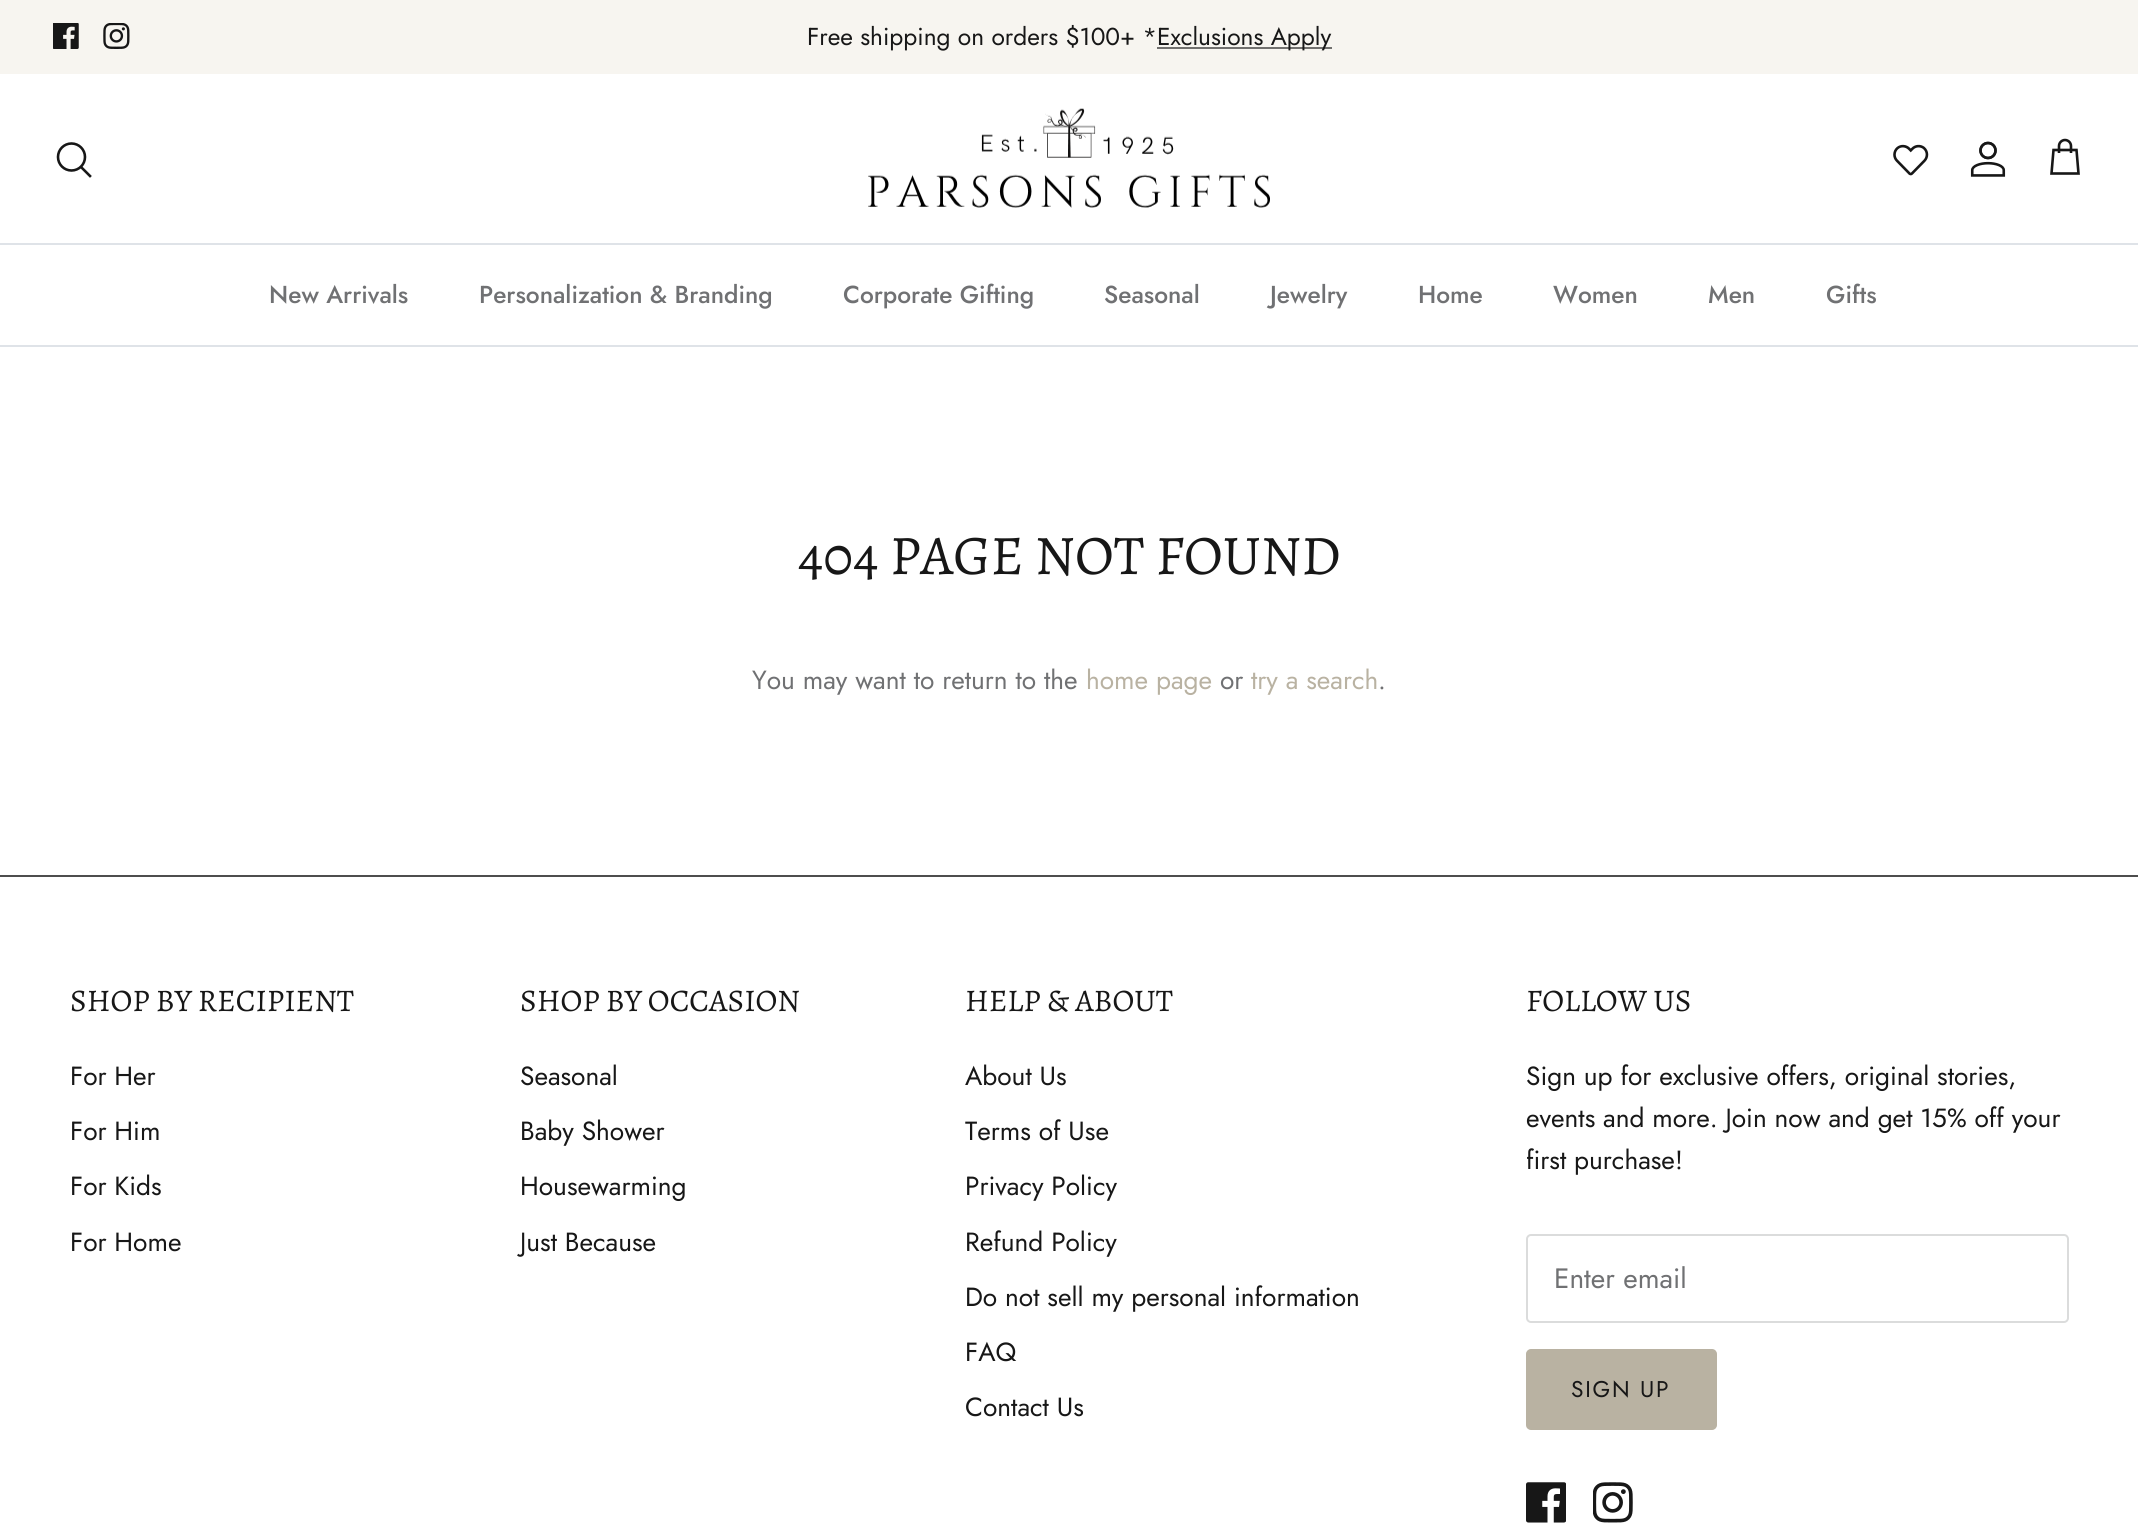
import math
import cairo


def use_color(cr, r, g, b):
  cr.set_source_rgb(r / 255, g / 255, b / 255)

def text(cr, x, y, s, family, size, color, bold=False, italic=False):
  cr.select_font_face(family, cairo.FONT_SLANT_ITALIC if italic else cairo.FONT_SLANT_NORMAL, cairo.FONT_WEIGHT_BOLD if bold else cairo.FONT_WEIGHT_NORMAL)
  cr.set_font_size(size)
  use_color(cr, *color)
  cr.move_to(x, y)
  cr.show_text(s)

def spaced_text(cr, x, y, s, letter, word):
  cr.move_to(x, y)
  for ch in s:
    cr.show_text(ch)
    cr.rel_move_to(letter + word * (ch == ' '), 0)

def box(cr, x, y, w, h, *color):
  use_color(cr, *color)
  cr.rectangle(x, y, w, h)
  cr.fill()

def round_rect(cr, x, y, w, h, r):
  cr.new_sub_path()
  for i, (u, v) in enumerate([(x + w - r, y + h - r), (x + r, y + h - r), (x + r, y + r), (x + w - r, y + r)]):
    cr.arc(u, v, r, i * math.pi / 2, (i + 1) * math.pi / 2)
  cr.close_path()

def picture(cr, path, x, y, w, h):
  cr.save()
  cr.set_source_surface(cairo.ImageSurface.create_from_png(path), x, y)
  cr.rectangle(x, y, w, h)
  cr.fill()
  cr.restore()

def draw(cr):
  use_color(cr, 255, 255, 255)
  cr.paint()
  box(cr, 0, 0, 2138, 74, 247, 245, 240)
  picture(cr, "img_01.png", 53, 23, 26, 26)
  picture(cr, "img_02.png", 103, 23, 27, 26)
  box(cr, 1157, 47, 175, 2, 113, 112, 110)
  box(cr, 0, 243, 2138, 2, 223, 227, 232)
  cr.arc(71.5, 157, 13.5, 0, 2 * math.pi)
  use_color(cr, 23, 23, 23)
  cr.set_line_width(2.6)
  cr.stroke()
  cr.new_path()
  cr.move_to(82, 168)
  cr.line_to(90, 176)
  cr.set_line_cap(cairo.LINE_CAP_SQUARE)
  cr.stroke()
  picture(cr, "img_03.png", 868, 108, 402, 100)
  picture(cr, "img_04.png", 1893, 144, 36, 32)
  picture(cr, "img_05.png", 1970, 141, 36, 36)
  cr.new_path()
  cr.move_to(2071, 153)
  cr.line_to(2071, 146)
  cr.curve_to(2071, 142.5, 2068, 140, 2065, 140)
  cr.curve_to(2062, 140, 2059, 142.5, 2059, 146)
  cr.line_to(2059, 153)
  cr.move_to(2053.5, 150)
  cr.line_to(2076.5, 150)
  cr.line_to(2078.5, 173.5)
  cr.line_to(2051.5, 173.5)
  cr.close_path()
  cr.set_line_cap(cairo.LINE_CAP_BUTT)
  cr.stroke()
  box(cr, 0, 345, 2138, 2, 223, 227, 232)
  box(cr, 0, 875, 2138, 2, 77, 77, 77)
  round_rect(cr, 1527, 1235, 541, 87, 4)
  use_color(cr, 219, 220, 220)
  cr.set_line_width(2)
  cr.stroke()
  use_color(cr, 185, 178, 162)
  round_rect(cr, 1527, 1350, 189, 79, 4)
  cr.fill_preserve()
  cr.stroke()
  picture(cr, "img_06.png", 1526, 1482, 40, 41)
  picture(cr, "img_07.png", 1593, 1482, 40, 41)
  text(cr, 807, 45, "Free shipping on orders $100+ *", "Jost", 24.5, (23, 23, 23))
  text(cr, 1157, 45, "Exclusions Apply", "Jost", 24.5, (23, 23, 23))
  text(cr, 269, 303, "New Arrivals", "Jost Medium", 24.5, (112, 113, 115))
  text(cr, 479, 303, "Personalization & Branding", "Jost Medium", 24.5, (112, 113, 115))
  text(cr, 843, 303, "Corporate Gifting", "Jost Medium", 24.5, (112, 113, 115))
  text(cr, 1104, 303, "Seasonal", "Jost Medium", 24.5, (112, 113, 115))
  text(cr, 1270, 303, "Jewelry", "Jost Medium", 24.5, (112, 113, 115))
  text(cr, 1418, 303, "Home", "Jost Medium", 24.5, (112, 113, 115))
  text(cr, 1553, 303, "Women", "Jost Medium", 24.5, (112, 113, 115))
  text(cr, 1708, 303, "Men", "Jost Medium", 24.5, (112, 113, 115))
  text(cr, 1826, 303, "Gifts", "Jost Medium", 24.5, (112, 113, 115))
  text(cr, 798, 574, "404 PAGE NOT FOUND", "Alegreya", 56, (23, 23, 23))
  text(cr, 752, 689, "You may want to return to the", "Jost", 26.25, (112, 113, 115))
  text(cr, 1086, 689, "home page", "Jost", 26.25, (185, 178, 162))
  text(cr, 1220, 689, "or", "Jost", 26.25, (112, 113, 115))
  text(cr, 1251, 689, "try a search", "Jost", 26.25, (185, 178, 162))
  text(cr, 1378, 689, ".", "Jost", 26.25, (112, 113, 115))
  text(cr, 70, 1011, "SHOP BY RECIPIENT", "Alegreya", 31.5, (23, 23, 23))
  text(cr, 70, 1085, "For Her", "Jost", 26.25, (23, 23, 23))
  text(cr, 70, 1140, "For Him", "Jost", 26.25, (23, 23, 23))
  text(cr, 70, 1195, "For Kids", "Jost", 26.25, (23, 23, 23))
  text(cr, 70, 1251, "For Home", "Jost", 26.25, (23, 23, 23))
  text(cr, 520, 1011, "SHOP BY OCCASION", "Alegreya", 31.5, (23, 23, 23))
  text(cr, 520, 1085, "Seasonal", "Jost", 26.25, (23, 23, 23))
  text(cr, 520, 1140, "Baby Shower", "Jost", 26.25, (23, 23, 23))
  text(cr, 520, 1195, "Housewarming", "Jost", 26.25, (23, 23, 23))
  text(cr, 520, 1251, "Just Because", "Jost", 26.25, (23, 23, 23))
  text(cr, 965, 1011, "HELP & ABOUT", "Alegreya", 31.5, (23, 23, 23))
  text(cr, 965, 1085, "About Us", "Jost", 26.25, (23, 23, 23))
  text(cr, 965, 1140, "Terms of Use", "Jost", 26.25, (23, 23, 23))
  text(cr, 965, 1195, "Privacy Policy", "Jost", 26.25, (23, 23, 23))
  text(cr, 965, 1251, "Refund Policy", "Jost", 26.25, (23, 23, 23))
  text(cr, 965, 1306, "Do not sell my personal information", "Jost", 26.25, (23, 23, 23))
  text(cr, 965, 1361, "FAQ", "Jost", 26.25, (23, 23, 23))
  text(cr, 965, 1416, "Contact Us", "Jost", 26.25, (23, 23, 23))
  text(cr, 1526, 1011, "FOLLOW US", "Alegreya", 31.5, (23, 23, 23))
  text(cr, 1526, 1085, "Sign up for exclusive offers, original stories,", "Jost", 26.25, (23, 23, 23))
  text(cr, 1526, 1127, "events and more. Join now and get 15% off your", "Jost", 26.25, (23, 23, 23))
  text(cr, 1526, 1169, "first purchase!", "Jost", 26.25, (23, 23, 23))
  text(cr, 1554, 1288, "Enter email", "Jost", 28, (112, 113, 115))
  cr.set_font_size(22.75)
  use_color(cr, 23, 23, 23)
  spaced_text(cr, 1571, 1397, "SIGN UP", 1.75, 0)


surface = cairo.ImageSurface(cairo.FORMAT_RGB24, 2138, 1526)
cr = cairo.Context(surface)
options = cairo.FontOptions()
options.set_hint_metrics(cairo.HINT_METRICS_OFF)
options.set_hint_style(cairo.HINT_STYLE_NONE)
cr.set_font_options(options)
cr.set_miter_limit(4)
draw(cr)
surface.write_to_png("out.png")
